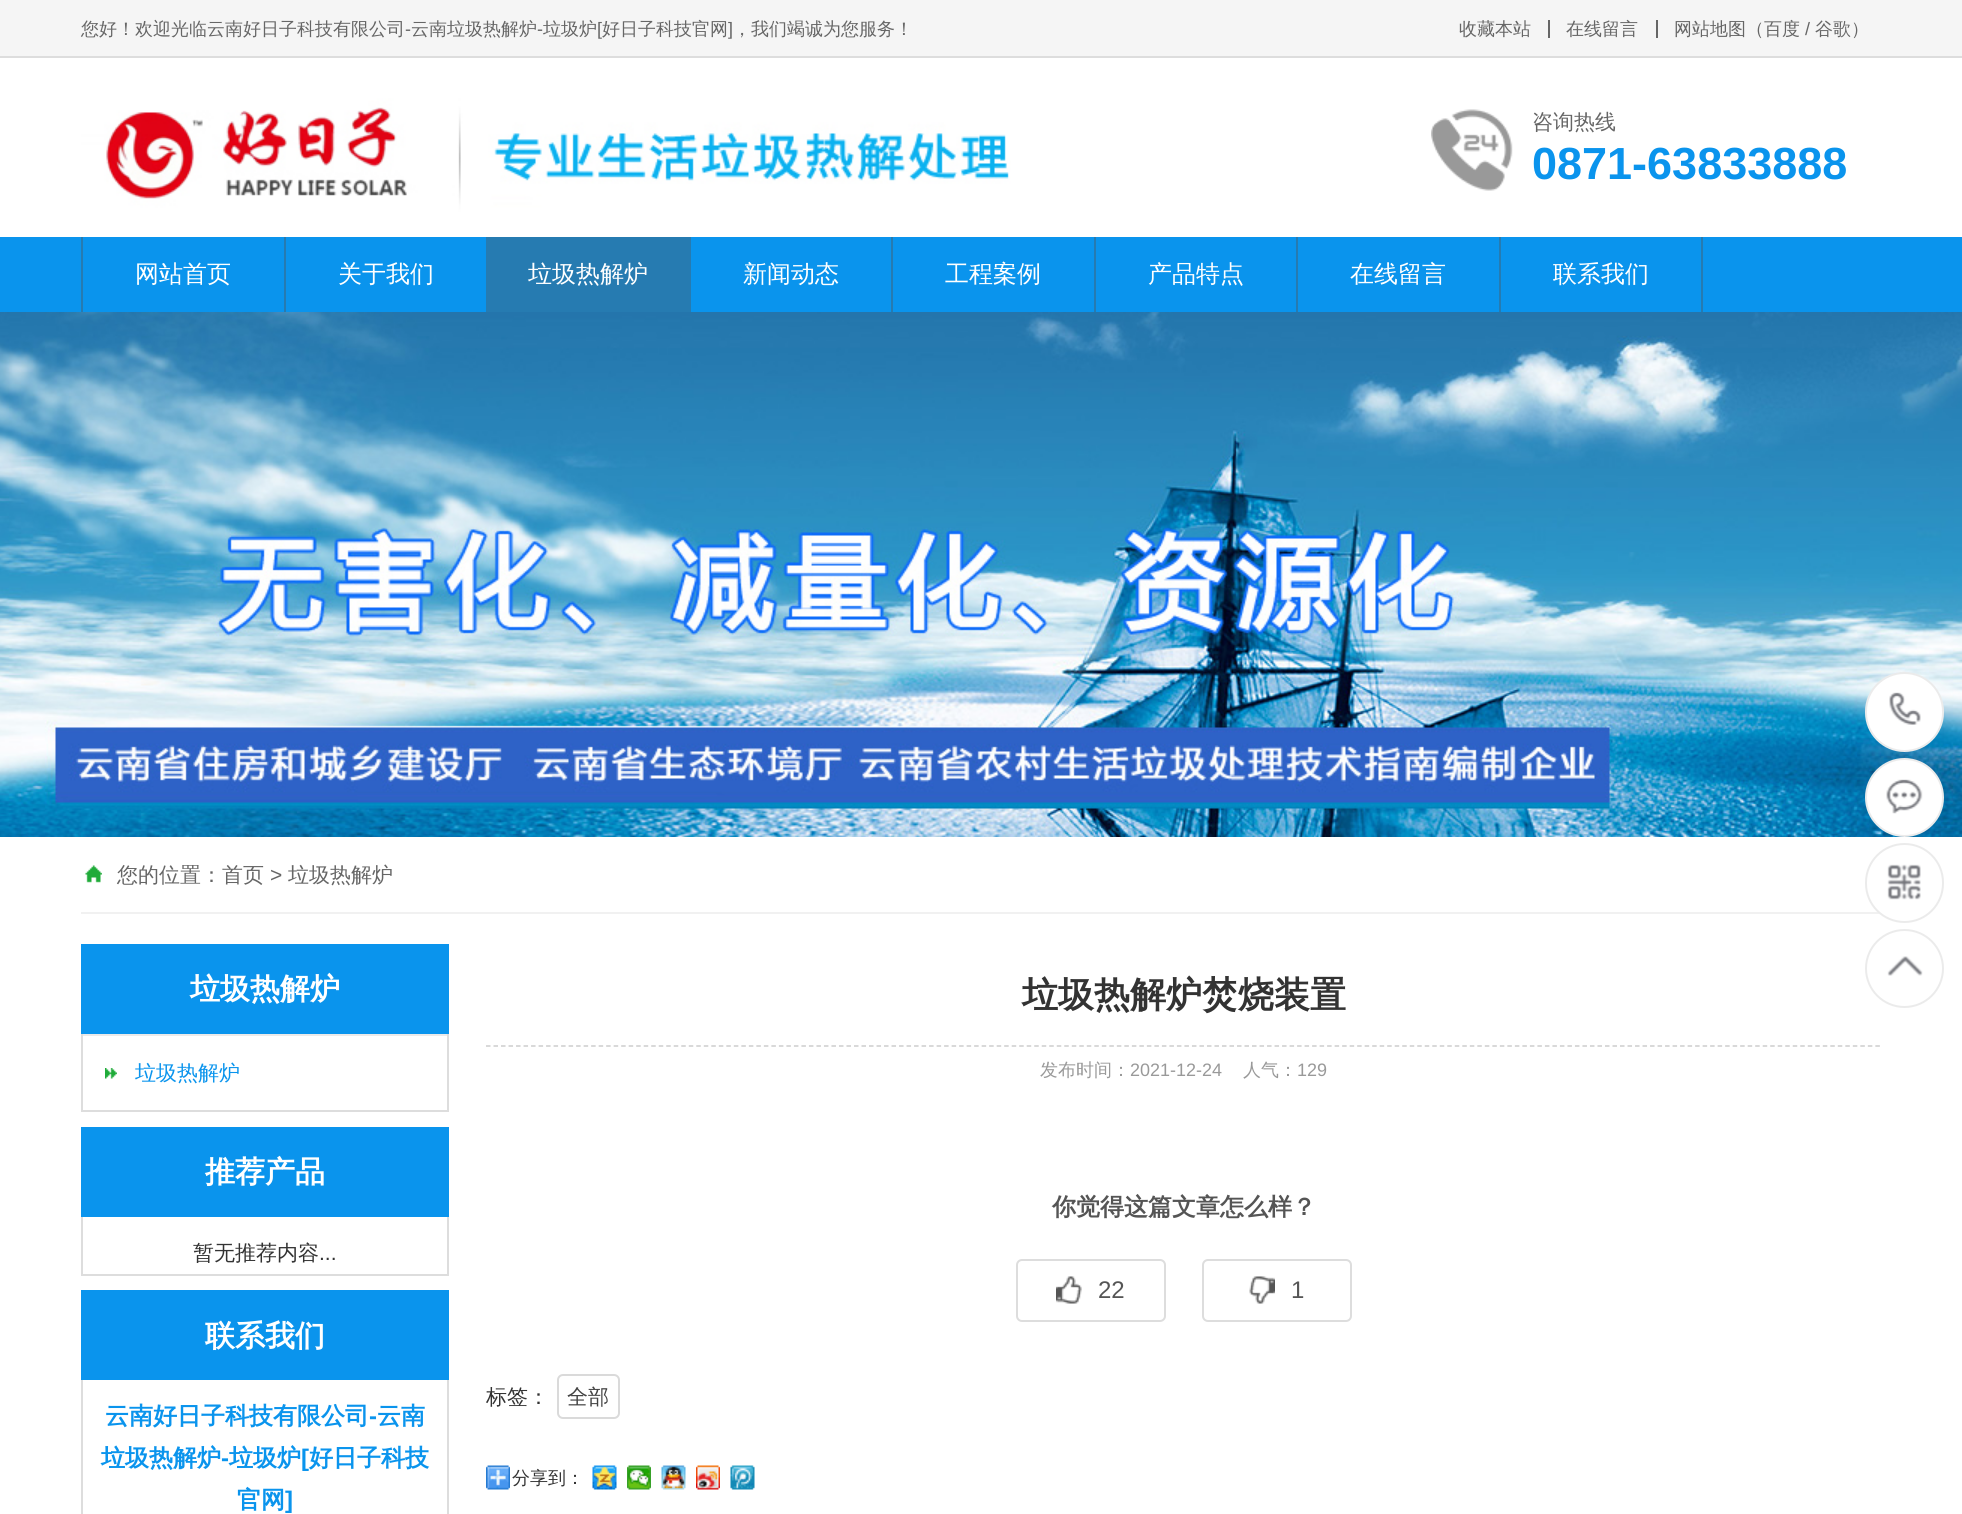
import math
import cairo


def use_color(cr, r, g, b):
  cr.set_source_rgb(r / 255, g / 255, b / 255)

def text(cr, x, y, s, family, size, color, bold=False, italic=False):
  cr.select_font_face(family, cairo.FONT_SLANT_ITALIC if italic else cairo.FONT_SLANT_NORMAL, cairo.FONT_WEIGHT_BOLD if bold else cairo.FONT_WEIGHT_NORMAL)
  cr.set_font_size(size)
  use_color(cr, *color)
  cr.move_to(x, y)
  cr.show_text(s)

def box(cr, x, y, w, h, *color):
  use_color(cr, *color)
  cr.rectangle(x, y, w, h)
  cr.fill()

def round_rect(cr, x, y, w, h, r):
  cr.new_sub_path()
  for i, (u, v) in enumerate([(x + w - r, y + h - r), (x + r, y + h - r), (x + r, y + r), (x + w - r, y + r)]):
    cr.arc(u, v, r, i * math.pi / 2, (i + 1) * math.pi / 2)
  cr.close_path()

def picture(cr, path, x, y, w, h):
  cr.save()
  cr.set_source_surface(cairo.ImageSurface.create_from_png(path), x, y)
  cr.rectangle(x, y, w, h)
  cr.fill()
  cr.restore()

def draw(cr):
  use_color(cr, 255, 255, 255)
  cr.paint()
  box(cr, 0, 0, 1962, 56, 245, 245, 245)
  box(cr, 0, 56, 1962, 2, 221, 221, 221)
  box(cr, 1548, 20, 2, 18, 102, 102, 102)
  box(cr, 1656, 20, 2, 18, 102, 102, 102)
  picture(cr, "img_01.png", 81, 87, 930, 135)
  picture(cr, "img_02.png", 1431, 109, 82, 82)
  box(cr, 0, 237, 1962, 75, 10, 148, 237)
  box(cr, 284, 237, 2, 75, 38, 123, 177)
  box(cr, 81, 237, 2, 75, 38, 123, 177)
  box(cr, 486, 237, 2, 75, 38, 123, 177)
  box(cr, 488, 237, 203, 75, 38, 123, 177)
  box(cr, 891, 237, 2, 75, 38, 123, 177)
  box(cr, 1094, 237, 2, 75, 38, 123, 177)
  box(cr, 1296, 237, 2, 75, 38, 123, 177)
  box(cr, 1499, 237, 2, 75, 38, 123, 177)
  box(cr, 1701, 237, 2, 75, 38, 123, 177)
  picture(cr, "img_03.png", 0, 312, 1962, 525)
  box(cr, 81, 912, 1800, 2, 241, 241, 241)
  picture(cr, "img_04.png", 85, 865, 17, 18)
  box(cr, 81, 944, 368, 90, 10, 148, 237)
  box(cr, 447, 1034, 2, 78, 221, 221, 221)
  box(cr, 81, 1110, 368, 2, 221, 221, 221)
  box(cr, 81, 1034, 2, 78, 221, 221, 221)
  picture(cr, "img_05.png", 105, 1068, 12, 11)
  box(cr, 83, 1034, 364, 2, 234, 234, 234)
  box(cr, 81, 1127, 368, 90, 10, 148, 237)
  box(cr, 447, 1217, 2, 58, 221, 221, 221)
  box(cr, 81, 1274, 368, 2, 221, 221, 221)
  box(cr, 81, 1217, 2, 58, 221, 221, 221)
  box(cr, 81, 1290, 368, 90, 10, 148, 237)
  box(cr, 447, 1380, 2, 134, 221, 221, 221)
  box(cr, 81, 1380, 2, 134, 221, 221, 221)
  cr.new_path()
  cr.move_to(486, 1046)
  cr.line_to(1881, 1046)
  use_color(cr, 204, 204, 204)
  cr.set_line_width(1.5)
  cr.set_dash([4.5, 3.01])
  cr.stroke()
  round_rect(cr, 1017, 1260, 148, 61, 5)
  use_color(cr, 221, 221, 221)
  cr.set_line_width(2)
  cr.set_dash([])
  cr.stroke()
  picture(cr, "img_06.png", 1056, 1276, 26, 28)
  round_rect(cr, 1203, 1260, 148, 61, 5)
  cr.stroke()
  picture(cr, "img_07.png", 1249, 1276, 26, 28)
  round_rect(cr, 558, 1375, 61, 43, 5)
  use_color(cr, 218, 218, 218)
  cr.stroke()
  picture(cr, "img_08.png", 486, 1465, 24, 25)
  picture(cr, "img_09.png", 592, 1465, 25, 25)
  picture(cr, "img_10.png", 627, 1465, 24, 25)
  picture(cr, "img_11.png", 661, 1465, 25, 25)
  picture(cr, "img_12.png", 696, 1465, 24, 25)
  picture(cr, "img_13.png", 730, 1465, 25, 25)
  use_color(cr, 255, 255, 255)
  round_rect(cr, 1866, 673, 77, 78, 38.5)
  cr.fill_preserve()
  use_color(cr, 235, 235, 235)
  cr.stroke()
  picture(cr, "img_14.png", 1889, 692, 32, 33)
  use_color(cr, 255, 255, 255)
  cr.arc(1904.5, 797.5, 38.5, 0, 2 * math.pi)
  cr.fill_preserve()
  use_color(cr, 235, 235, 235)
  cr.stroke()
  picture(cr, "img_15.png", 1886, 779, 37, 35)
  use_color(cr, 255, 255, 255)
  round_rect(cr, 1866, 844, 77, 78, 38.5)
  cr.fill_preserve()
  use_color(cr, 235, 235, 235)
  cr.stroke()
  picture(cr, "img_16.png", 1887, 864, 34, 36)
  cr.arc(1904.5, 968.5, 38.5, 0, 2 * math.pi)
  cr.stroke()
  picture(cr, "img_17.png", 1887, 956, 36, 20)
  text(cr, 81, 35, "您好！欢迎光临云南好日子科技有限公司", "WenQuanYi Zen Hei Medium", 18, (102, 102, 102))
  text(cr, 405, 35, "-", "Liberation Sans", 18, (102, 102, 102))
  text(cr, 411, 35, "云南垃圾热解炉", "WenQuanYi Zen Hei Medium", 18, (102, 102, 102))
  text(cr, 537, 35, "-", "Liberation Sans", 18, (102, 102, 102))
  text(cr, 543, 35, "垃圾炉", "WenQuanYi Zen Hei Medium", 18, (102, 102, 102))
  text(cr, 597, 35, "[", "Liberation Sans", 18, (102, 102, 102))
  text(cr, 602, 35, "好日子科技官网", "WenQuanYi Zen Hei Medium", 18, (102, 102, 102))
  text(cr, 728, 35, "]", "Liberation Sans", 18, (102, 102, 102))
  text(cr, 733, 35, "，我们竭诚为您服务！", "WenQuanYi Zen Hei Medium", 18, (102, 102, 102))
  text(cr, 1459, 35, "收藏本站", "WenQuanYi Zen Hei Medium", 18, (102, 102, 102))
  text(cr, 1566, 35, "在线留言", "WenQuanYi Zen Hei Medium", 18, (102, 102, 102))
  text(cr, 1674, 35, "网站地图（百度", "WenQuanYi Zen Hei Medium", 18, (102, 102, 102))
  text(cr, 1805, 35, "/", "Liberation Sans", 18, (102, 102, 102))
  text(cr, 1815, 35, "谷歌）", "WenQuanYi Zen Hei Medium", 18, (102, 102, 102))
  text(cr, 1532, 129, "咨询热线", "WenQuanYi Zen Hei Medium", 21, (102, 102, 102))
  text(cr, 1532, 179, "0871-63833888", "Liberation Sans", 45, (10, 148, 237), bold=True)
  text(cr, 135, 282, "网站首页", "WenQuanYi Zen Hei Medium", 24, (255, 255, 255))
  text(cr, 338, 282, "关于我们", "WenQuanYi Zen Hei Medium", 24, (255, 255, 255))
  text(cr, 528, 282, "垃圾热解炉", "WenQuanYi Zen Hei Medium", 24, (255, 255, 255))
  text(cr, 743, 282, "新闻动态", "WenQuanYi Zen Hei Medium", 24, (255, 255, 255))
  text(cr, 945, 282, "工程案例", "WenQuanYi Zen Hei Medium", 24, (255, 255, 255))
  text(cr, 1148, 282, "产品特点", "WenQuanYi Zen Hei Medium", 24, (255, 255, 255))
  text(cr, 1350, 282, "在线留言", "WenQuanYi Zen Hei Medium", 24, (255, 255, 255))
  text(cr, 1553, 282, "联系我们", "WenQuanYi Zen Hei Medium", 24, (255, 255, 255))
  text(cr, 117, 882, "您的位置：首页", "WenQuanYi Zen Hei Medium", 21, (102, 102, 102))
  text(cr, 270, 882, ">", "Liberation Sans", 21, (102, 102, 102))
  text(cr, 288, 882, "垃圾热解炉", "WenQuanYi Zen Hei Medium", 21, (102, 102, 102))
  text(cr, 190, 999, "垃圾热解炉", "WenQuanYi Zen Hei", 30, (255, 255, 255), bold=True)
  text(cr, 135, 1080, "垃圾热解炉", "WenQuanYi Zen Hei Medium", 21, (10, 148, 237))
  text(cr, 205, 1182, "推荐产品", "WenQuanYi Zen Hei", 30, (255, 255, 255), bold=True)
  text(cr, 193, 1260, "暂无推荐内容", "WenQuanYi Zen Hei Medium", 21, (51, 51, 51))
  text(cr, 319, 1260, "...", "Liberation Sans", 21, (51, 51, 51))
  text(cr, 205, 1346, "联系我们", "WenQuanYi Zen Hei", 30, (255, 255, 255), bold=True)
  text(cr, 105, 1424, "云南好日子科技有限公司", "WenQuanYi Zen Hei", 24, (10, 148, 237), bold=True)
  text(cr, 369, 1424, "-", "Liberation Sans", 24, (10, 148, 237), bold=True)
  text(cr, 377, 1424, "云南", "WenQuanYi Zen Hei", 24, (10, 148, 237), bold=True)
  text(cr, 101, 1466, "垃圾热解炉", "WenQuanYi Zen Hei", 24, (10, 148, 237), bold=True)
  text(cr, 221, 1466, "-", "Liberation Sans", 24, (10, 148, 237), bold=True)
  text(cr, 229, 1466, "垃圾炉", "WenQuanYi Zen Hei", 24, (10, 148, 237), bold=True)
  text(cr, 301, 1466, "[", "Liberation Sans", 24, (10, 148, 237), bold=True)
  text(cr, 309, 1466, "好日子科技", "WenQuanYi Zen Hei", 24, (10, 148, 237), bold=True)
  text(cr, 237, 1508, "官网", "WenQuanYi Zen Hei", 24, (10, 148, 237), bold=True)
  text(cr, 285, 1508, "]", "Liberation Sans", 24, (10, 148, 237), bold=True)
  text(cr, 1022, 1007, "垃圾热解炉焚烧装置", "WenQuanYi Zen Hei", 36, (51, 51, 51), bold=True)
  text(cr, 1040, 1076, "发布时间：", "WenQuanYi Zen Hei Medium", 18, (153, 153, 153))
  text(cr, 1130, 1076, "2021-12-24", "Liberation Sans", 18, (153, 153, 153))
  text(cr, 1243, 1076, "人气：", "WenQuanYi Zen Hei Medium", 18, (153, 153, 153))
  text(cr, 1297, 1076, "129", "Liberation Sans", 18, (153, 153, 153))
  text(cr, 1052, 1215, "你觉得这篇文章怎么样？", "WenQuanYi Zen Hei", 24, (85, 85, 85), bold=True)
  text(cr, 1098, 1298, "22", "Liberation Sans", 24, (85, 85, 85))
  text(cr, 1291, 1298, "1", "Liberation Sans", 24, (85, 85, 85))
  text(cr, 486, 1404, "标签：", "WenQuanYi Zen Hei Medium", 21, (51, 51, 51))
  text(cr, 567, 1404, "全部", "WenQuanYi Zen Hei Medium", 21, (67, 67, 67))
  text(cr, 512, 1484, "分享到：", "WenQuanYi Zen Hei Medium", 18, (51, 51, 51))


surface = cairo.ImageSurface(cairo.FORMAT_RGB24, 1962, 1514)
cr = cairo.Context(surface)
options = cairo.FontOptions()
options.set_hint_metrics(cairo.HINT_METRICS_OFF)
options.set_hint_style(cairo.HINT_STYLE_NONE)
cr.set_font_options(options)
cr.set_miter_limit(4)
draw(cr)
surface.write_to_png("out.png")
